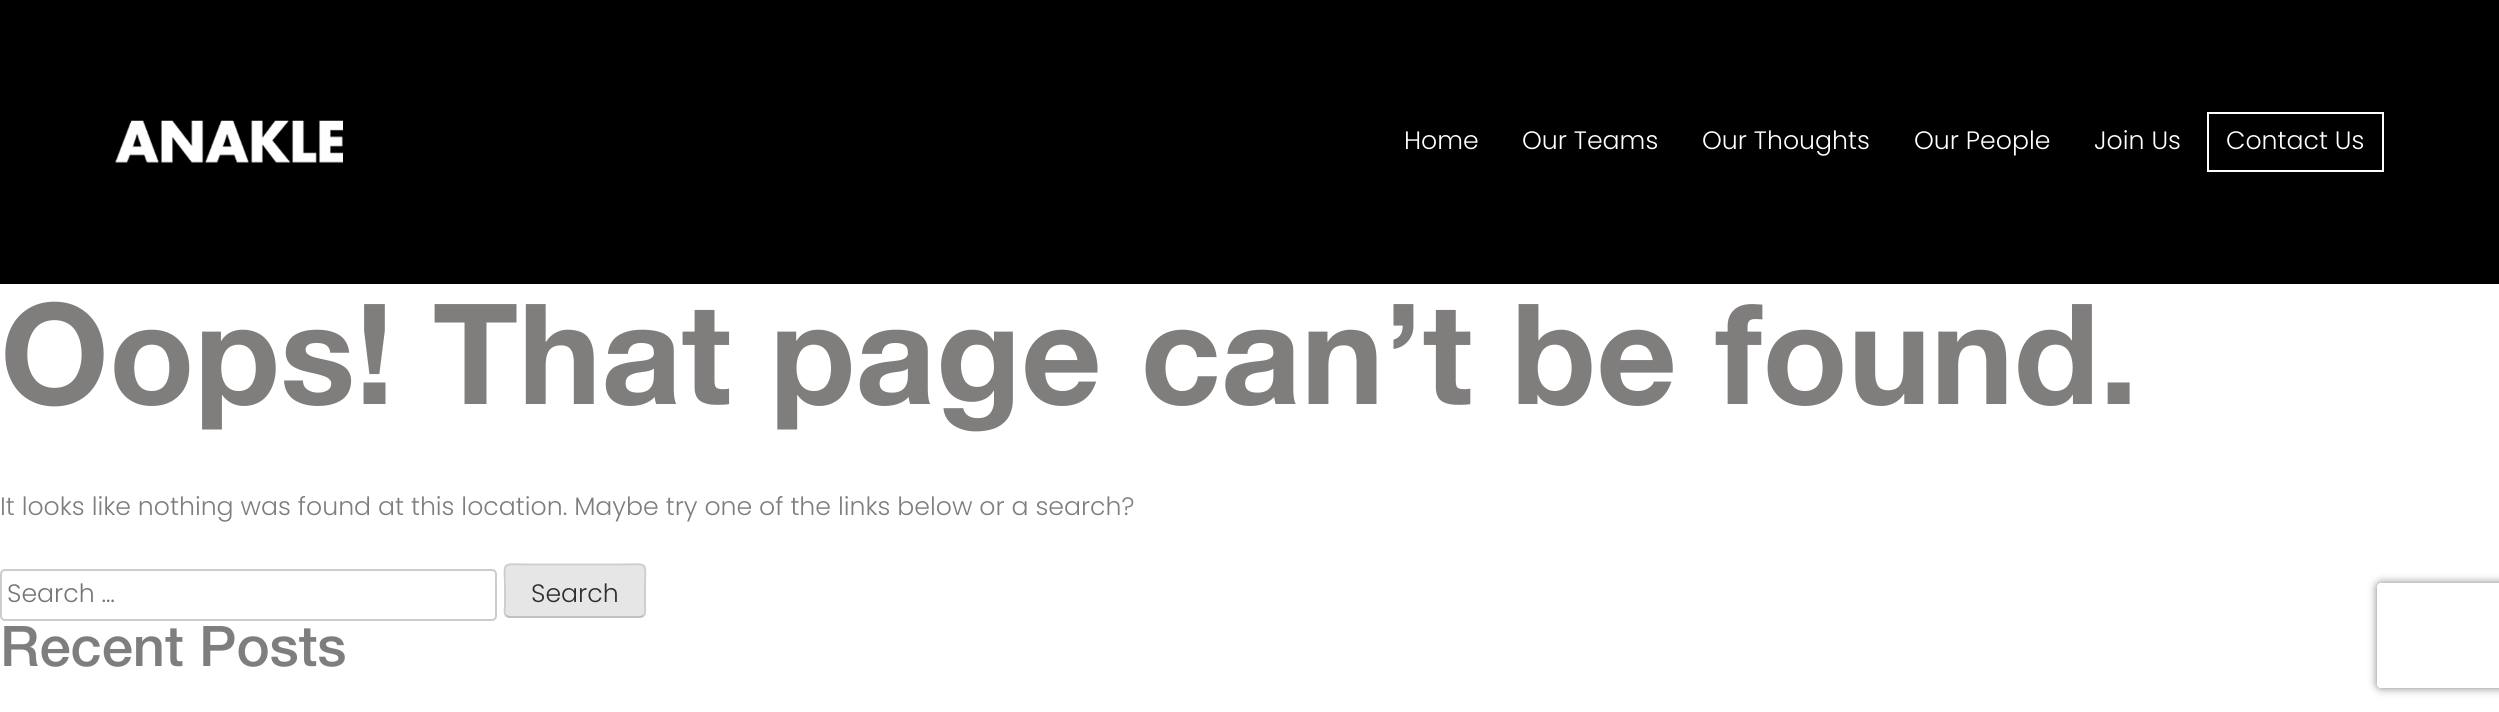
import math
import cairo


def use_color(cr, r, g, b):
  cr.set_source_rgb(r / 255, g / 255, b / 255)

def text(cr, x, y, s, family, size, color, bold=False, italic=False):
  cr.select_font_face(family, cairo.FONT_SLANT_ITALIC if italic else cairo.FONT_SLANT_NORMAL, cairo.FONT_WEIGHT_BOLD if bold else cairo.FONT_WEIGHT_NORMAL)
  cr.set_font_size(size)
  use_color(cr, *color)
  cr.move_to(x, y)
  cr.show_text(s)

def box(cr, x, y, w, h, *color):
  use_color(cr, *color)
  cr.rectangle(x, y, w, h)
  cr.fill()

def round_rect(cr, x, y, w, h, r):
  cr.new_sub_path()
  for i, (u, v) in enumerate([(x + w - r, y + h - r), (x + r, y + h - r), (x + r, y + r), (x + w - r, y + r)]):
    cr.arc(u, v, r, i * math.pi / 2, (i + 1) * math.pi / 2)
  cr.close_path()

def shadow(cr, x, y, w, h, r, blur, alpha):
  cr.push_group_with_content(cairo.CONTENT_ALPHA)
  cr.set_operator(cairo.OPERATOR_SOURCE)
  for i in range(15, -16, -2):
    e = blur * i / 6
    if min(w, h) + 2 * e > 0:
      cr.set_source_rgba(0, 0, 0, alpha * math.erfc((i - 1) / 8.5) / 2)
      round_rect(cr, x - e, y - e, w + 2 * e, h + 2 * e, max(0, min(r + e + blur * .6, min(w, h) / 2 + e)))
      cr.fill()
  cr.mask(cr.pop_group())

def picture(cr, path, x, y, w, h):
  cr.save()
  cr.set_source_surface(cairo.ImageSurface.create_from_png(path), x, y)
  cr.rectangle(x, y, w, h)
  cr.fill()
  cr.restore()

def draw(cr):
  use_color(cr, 255, 255, 255)
  cr.paint()
  box(cr, 0, 0, 2499, 284, 0, 0, 0)
  picture(cr, "img_01.png", 115, 120, 228, 43)
  cr.rectangle(2208, 113, 175, 58)
  use_color(cr, 255, 255, 255)
  cr.stroke()
  round_rect(cr, 1, 570, 495, 50, 4)
  use_color(cr, 204, 204, 204)
  cr.stroke()
  use_color(cr, 230, 230, 230)
  round_rect(cr, 504, 564, 142, 54, 5)
  cr.fill()
  cr.new_path()
  cr.move_to(643.5, 615.5)
  cr.line_to(640.5, 617)
  cr.line_to(509, 617)
  cr.line_to(506, 615.5)
  use_color(cr, 187, 187, 187)
  cr.set_line_width(1.8)
  cr.stroke()
  cr.new_path()
  cr.move_to(506, 615.5)
  cr.curve_to(503.5, 613, 505, 607.5, 505, 605)
  cr.line_to(505, 590.5)
  cr.curve_to(505, 559.5, 499, 564.5, 531, 564.5)
  cr.line_to(618.5, 564.5)
  cr.curve_to(650.5, 564.5, 645, 559.5, 645, 590.5)
  cr.line_to(645, 605)
  cr.curve_to(645, 607.5, 646, 613, 643.5, 615.5)
  use_color(cr, 204, 204, 204)
  cr.stroke()
  cr.save()
  cr.set_fill_rule(cairo.FILL_RULE_EVEN_ODD)
  cr.new_path()
  cr.move_to(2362, 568)
  cr.line_to(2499, 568)
  cr.line_to(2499, 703)
  cr.line_to(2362, 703)
  cr.close_path()
  cr.move_to(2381, 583)
  cr.line_to(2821, 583)
  cr.curve_to(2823, 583, 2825, 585, 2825, 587)
  cr.line_to(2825, 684)
  cr.curve_to(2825, 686, 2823, 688, 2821, 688)
  cr.line_to(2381, 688)
  cr.curve_to(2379, 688, 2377, 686, 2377, 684)
  cr.line_to(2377, 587)
  cr.curve_to(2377, 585, 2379, 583, 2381, 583)
  cr.close_path()
  cr.clip()
  use_color(cr, 128, 128, 128)
  shadow(cr, 2377, 583, 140, 105, 4, 4.5, 1)
  cr.restore()
  text(cr, 1404, 149, "Home", "Poppins Light", 25.2, (255, 255, 255))
  text(cr, 1522, 149, "Our Teams", "Poppins Light", 25.2, (255, 255, 255))
  text(cr, 1702, 149, "Our Thoughts", "Poppins Light", 25.2, (255, 255, 255))
  text(cr, 1914, 149, "Our People", "Poppins Light", 25.2, (255, 255, 255))
  text(cr, 2094, 149, "Join Us", "Poppins Light", 25.2, (255, 255, 255))
  text(cr, 2226, 149, "Contact Us", "Poppins Light", 25.2, (255, 255, 255))
  text(cr, 0, 404, "Oops! That page can’t be found.", "Helvetica Neue", 140, (128, 125, 125), bold=True)
  text(cr, 0, 515, "It looks like nothing was found at this location. Maybe try one of the links below or a search?", "Poppins Light", 25.2, (128, 125, 125))
  text(cr, 7, 602, "Search …", "Poppins Light", 25.2, (117, 117, 117))
  text(cr, 531, 602, "Search", "Poppins Light", 25.2, (46, 46, 46))
  text(cr, 0, 666, "Recent Posts", "Helvetica Neue Medium", 56, (128, 125, 125))


surface = cairo.ImageSurface(cairo.FORMAT_RGB24, 2499, 712)
cr = cairo.Context(surface)
options = cairo.FontOptions()
options.set_hint_metrics(cairo.HINT_METRICS_OFF)
options.set_hint_style(cairo.HINT_STYLE_NONE)
cr.set_font_options(options)
cr.set_miter_limit(4)
draw(cr)
surface.write_to_png("out.png")
